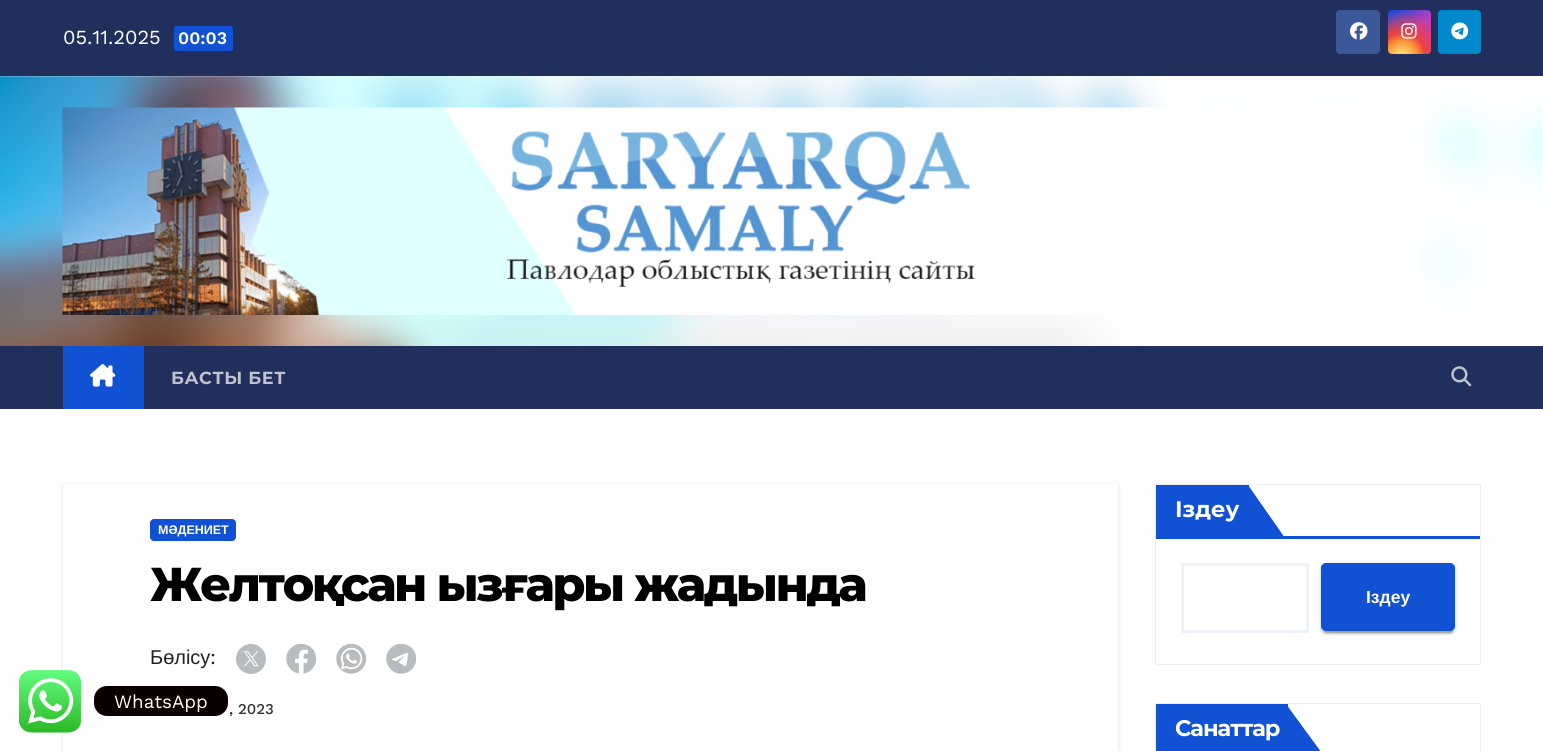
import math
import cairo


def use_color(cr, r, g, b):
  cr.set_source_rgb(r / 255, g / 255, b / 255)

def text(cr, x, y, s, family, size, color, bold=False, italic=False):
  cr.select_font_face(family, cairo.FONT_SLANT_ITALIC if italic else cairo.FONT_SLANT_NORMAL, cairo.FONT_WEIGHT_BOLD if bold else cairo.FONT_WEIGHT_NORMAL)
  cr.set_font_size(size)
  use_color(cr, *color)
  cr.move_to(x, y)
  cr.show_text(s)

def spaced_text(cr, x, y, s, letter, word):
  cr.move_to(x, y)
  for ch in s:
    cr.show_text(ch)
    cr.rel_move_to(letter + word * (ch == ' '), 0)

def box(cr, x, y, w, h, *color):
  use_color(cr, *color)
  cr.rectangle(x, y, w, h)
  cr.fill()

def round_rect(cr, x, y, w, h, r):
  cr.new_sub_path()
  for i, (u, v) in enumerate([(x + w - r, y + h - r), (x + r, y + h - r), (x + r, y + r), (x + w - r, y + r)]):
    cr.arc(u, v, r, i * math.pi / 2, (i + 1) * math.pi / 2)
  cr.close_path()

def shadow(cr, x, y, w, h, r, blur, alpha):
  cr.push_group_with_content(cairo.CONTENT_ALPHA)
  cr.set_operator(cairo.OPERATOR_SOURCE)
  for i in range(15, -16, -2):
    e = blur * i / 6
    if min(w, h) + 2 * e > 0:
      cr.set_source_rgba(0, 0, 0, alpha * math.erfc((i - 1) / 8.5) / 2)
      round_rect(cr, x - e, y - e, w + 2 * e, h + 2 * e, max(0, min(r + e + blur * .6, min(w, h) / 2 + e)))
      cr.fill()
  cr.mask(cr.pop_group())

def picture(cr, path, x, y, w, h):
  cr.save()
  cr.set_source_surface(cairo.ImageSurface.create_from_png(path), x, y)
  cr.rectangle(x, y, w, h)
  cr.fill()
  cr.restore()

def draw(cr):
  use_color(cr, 255, 255, 255)
  cr.paint()
  box(cr, 0, 0, 1543, 76, 32, 47, 91)
  use_color(cr, 17, 81, 211)
  round_rect(cr, 174, 26, 59, 25, 2.5)
  cr.fill()
  use_color(cr, 59, 89, 152)
  round_rect(cr, 1336, 10, 44, 44, 4)
  cr.fill()
  picture(cr, "img_01.png", 1350, 22, 18, 18)
  gradient = cairo.LinearGradient(1388, 10, 1431, 54)
  gradient.add_color_stop_rgba(0.12, 0.137, 0.294, 0.843, 1)
  gradient.add_color_stop_rgba(0.58, 0.765, 0.235, 0.745, 1)
  cr.set_source(gradient)
  round_rect(cr, 1388, 10, 43, 44, 4)
  cr.fill()
  gradient = cairo.RadialGradient(1402, 56, 0, 1402, 56, 55)
  gradient.add_color_stop_rgba(0, 1, 0.882, 0.49, 1)
  gradient.add_color_stop_rgba(0.1, 1, 0.804, 0.412, 1)
  gradient.add_color_stop_rgba(0.28, 0.98, 0.569, 0.216, 1)
  gradient.add_color_stop_rgba(0.42, 0.922, 0.255, 0.255, 1)
  gradient.add_color_stop_rgba(0.82, 0.922, 0.255, 0.255, 0)
  cr.set_source(gradient)
  round_rect(cr, 1388, 10, 43, 44, 4)
  cr.fill()
  picture(cr, "img_02.png", 1401, 23, 16, 16)
  use_color(cr, 0, 136, 204)
  round_rect(cr, 1438, 10, 43, 44, 4)
  cr.fill()
  picture(cr, "img_03.png", 1451, 22, 18, 18)
  picture(cr, "img_04.png", 0, 76, 1543, 270)
  picture(cr, "img_05.png", 62, 107, 1356, 208)
  box(cr, 0, 346, 1543, 63, 32, 47, 91)
  box(cr, 63, 346, 81, 63, 17, 81, 211)
  picture(cr, "img_06.png", 90, 364, 26, 23)
  picture(cr, "img_07.png", 1451, 366, 21, 21)
  use_color(cr, 0, 0, 0)
  shadow(cr, 63, 485, 1055, 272, 0, 2, 0.15)
  box(cr, 63, 484, 1055, 267, 255, 255, 255)
  use_color(cr, 17, 81, 211)
  round_rect(cr, 150, 519, 86, 22, 4)
  cr.fill()
  picture(cr, "img_08.png", 236, 644, 30, 30)
  picture(cr, "img_09.png", 286, 644, 30, 30)
  picture(cr, "img_10.png", 336, 644, 30, 30)
  picture(cr, "img_11.png", 386, 644, 30, 30)
  cr.rectangle(1155.5, 484.5, 325, 180)
  use_color(cr, 238, 238, 238)
  cr.set_line_width(1)
  cr.stroke()
  box(cr, 1156, 485, 93, 51, 17, 81, 211)
  cr.new_path()
  cr.move_to(1248, 538)
  cr.line_to(1248, 485)
  cr.line_to(1285, 538)
  cr.close_path()
  cr.fill()
  box(cr, 1156, 536, 324, 3, 17, 81, 211)
  cr.rectangle(1182.5, 564.5, 125, 67)
  use_color(cr, 238, 243, 251)
  cr.set_line_width(3)
  cr.stroke()
  use_color(cr, 0, 0, 0)
  shadow(cr, 1321, 564, 134, 69, 5, 3, 0.12)
  shadow(cr, 1324, 569, 129, 64, 2.5, 0.5, 0.2)
  shadow(cr, 1321, 565, 134, 69, 5, 1, 0.14)
  use_color(cr, 17, 81, 211)
  round_rect(cr, 1321.5, 563.5, 133, 67, 4.5)
  cr.fill_preserve()
  cr.set_line_width(1)
  cr.stroke()
  cr.rectangle(1155.5, 703.5, 325, 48)
  use_color(cr, 238, 238, 238)
  cr.stroke()
  box(cr, 1156, 704, 132, 47, 17, 81, 211)
  cr.new_path()
  cr.move_to(1286, 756)
  cr.line_to(1286, 704)
  cr.line_to(1324, 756)
  cr.close_path()
  cr.fill()
  picture(cr, "img_12.png", 19, 670, 62, 63)
  use_color(cr, 10, 0, 0)
  round_rect(cr, 94, 686, 134, 30, 13)
  cr.fill()
  text(cr, 63, 44, "05.11.2025", "Work Sans", 20, (255, 255, 255))
  text(cr, 178, 44, "00:03", "Work Sans SemiBold", 17.5, (255, 255, 255))
  cr.select_font_face("Montserrat", cairo.FONT_SLANT_NORMAL, cairo.FONT_WEIGHT_BOLD)
  use_color(cr, 190, 195, 207)
  spaced_text(cr, 171, 384, "БАСТЫ БЕТ", 0.6, 0)
  text(cr, 158, 534, "МӘДЕНИЕТ", "Liberation Sans", 12.5, (255, 255, 255), bold=True)
  cr.select_font_face("Montserrat ExtraBold")
  cr.set_font_size(47.5)
  use_color(cr, 0, 0, 0)
  spaced_text(cr, 150, 601, "Желтоқсан ызғары жадында", -2.4, 0)
  text(cr, 150, 664, "Бөлісу", "Liberation Sans", 20, (34, 34, 34))
  text(cr, 210, 664, ":", "Work Sans", 20, (34, 34, 34))
  text(cr, 229, 714, ", 2023", "Work Sans Medium", 15, (51, 51, 51))
  text(cr, 1175, 517, "Іздеу", "Montserrat", 22.5, (255, 255, 255), bold=True)
  text(cr, 1366, 603, "Іздеу", "Liberation Sans", 17.5, (255, 255, 255), bold=True)
  cr.select_font_face("Montserrat", cairo.FONT_SLANT_NORMAL, cairo.FONT_WEIGHT_BOLD)
  cr.set_font_size(22.5)
  spaced_text(cr, 1175, 736, "Санаттар", -1, 0)
  text(cr, 114, 708, "WhatsApp", "Work Sans", 18.75, (255, 255, 255))


surface = cairo.ImageSurface(cairo.FORMAT_RGB24, 1543, 751)
cr = cairo.Context(surface)
options = cairo.FontOptions()
options.set_hint_metrics(cairo.HINT_METRICS_OFF)
options.set_hint_style(cairo.HINT_STYLE_NONE)
cr.set_font_options(options)
cr.set_miter_limit(4)
draw(cr)
surface.write_to_png("out.png")
